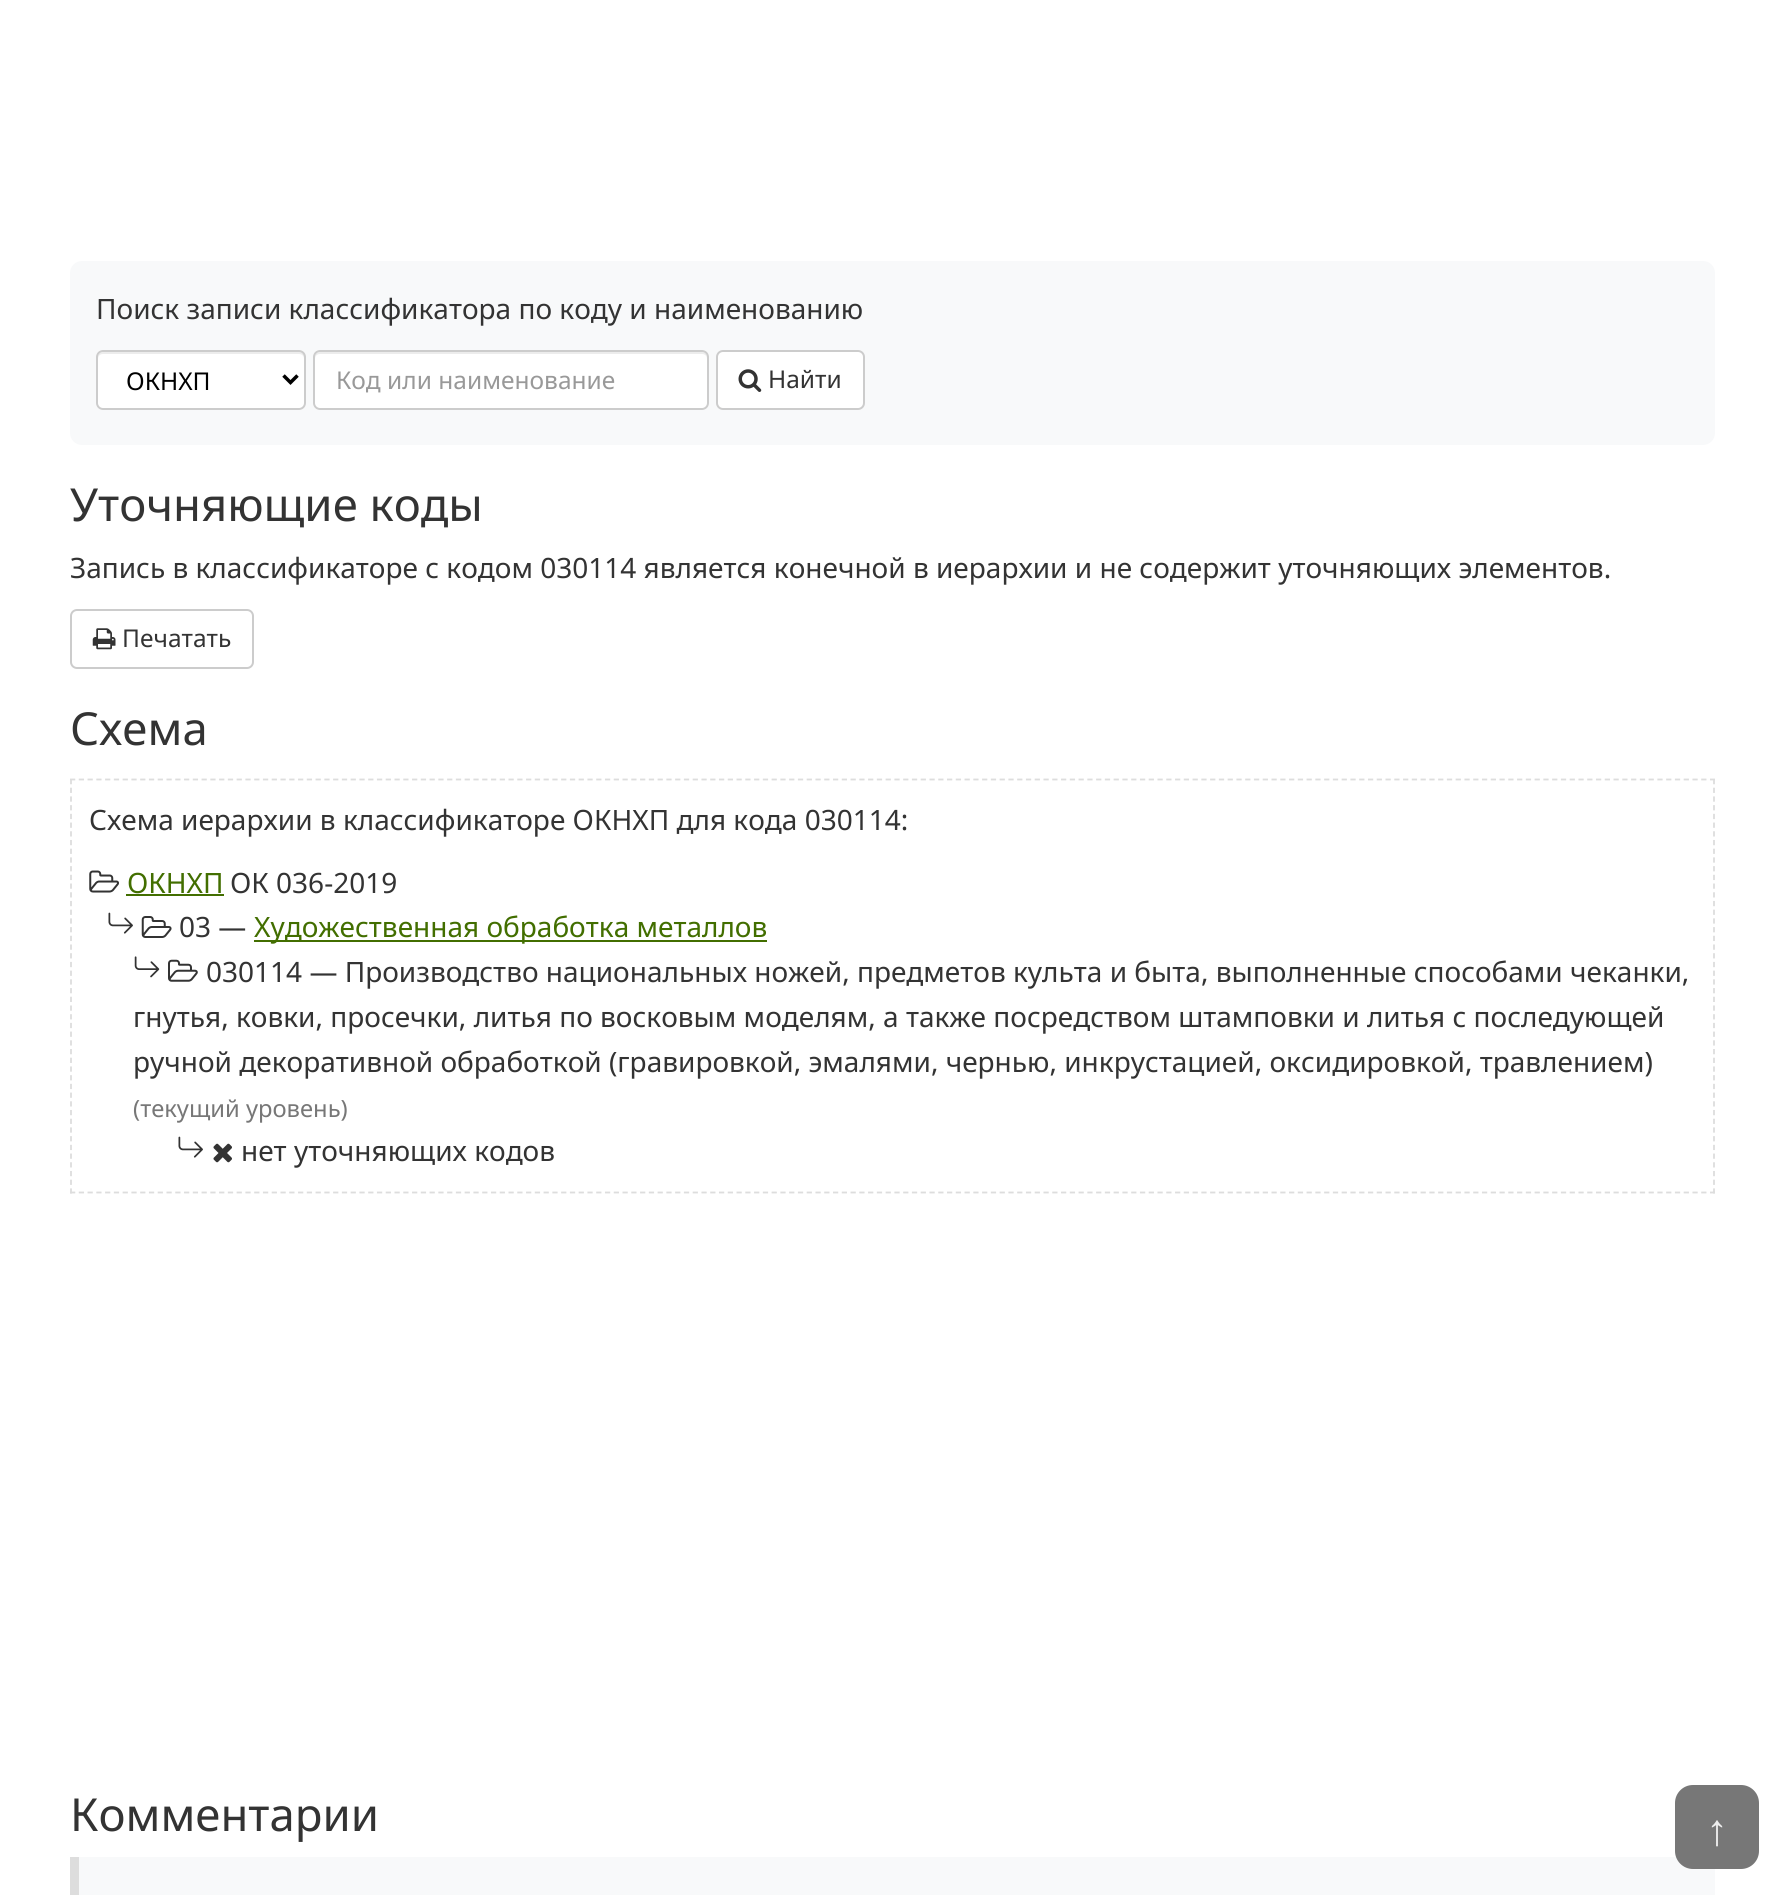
import math
import cairo


def use_color(cr, r, g, b):
  cr.set_source_rgb(r / 255, g / 255, b / 255)

def text(cr, x, y, s, family, size, color, bold=False, italic=False):
  cr.select_font_face(family, cairo.FONT_SLANT_ITALIC if italic else cairo.FONT_SLANT_NORMAL, cairo.FONT_WEIGHT_BOLD if bold else cairo.FONT_WEIGHT_NORMAL)
  cr.set_font_size(size)
  use_color(cr, *color)
  cr.move_to(x, y)
  cr.show_text(s)

def box(cr, x, y, w, h, *color):
  use_color(cr, *color)
  cr.rectangle(x, y, w, h)
  cr.fill()

def round_rect(cr, x, y, w, h, r):
  cr.new_sub_path()
  for i, (u, v) in enumerate([(x + w - r, y + h - r), (x + r, y + h - r), (x + r, y + r), (x + w - r, y + r)]):
    cr.arc(u, v, r, i * math.pi / 2, (i + 1) * math.pi / 2)
  cr.close_path()

def picture(cr, path, x, y, w, h):
  cr.save()
  cr.set_source_surface(cairo.ImageSurface.create_from_png(path), x, y)
  cr.rectangle(x, y, w, h)
  cr.fill()
  cr.restore()

def draw(cr):
  use_color(cr, 255, 255, 255)
  cr.paint()
  use_color(cr, 248, 249, 250)
  round_rect(cr, 70, 261, 1645, 184, 12)
  cr.fill()
  use_color(cr, 255, 255, 255)
  round_rect(cr, 96, 350, 210, 60, 7)
  cr.fill()
  use_color(cr, 236, 236, 236)
  cr.new_path()
  cr.move_to(103, 354)
  cr.line_to(299, 354)
  cr.curve_to(302, 354, 304, 356, 304, 359)
  cr.line_to(304, 404)
  cr.line_to(304, 407)
  cr.curve_to(304, 406, 305, 404, 305, 403)
  cr.line_to(305, 357)
  cr.curve_to(305, 354, 303, 352, 300, 352)
  cr.line_to(103, 352)
  cr.curve_to(100, 352, 98, 354, 98, 357)
  cr.line_to(98, 359)
  cr.curve_to(98, 356, 100, 354, 103, 354)
  cr.close_path()
  cr.fill()
  round_rect(cr, 97, 351, 208, 58, 6)
  use_color(cr, 204, 204, 204)
  cr.stroke()
  cr.new_path()
  cr.move_to(283.5, 375.5)
  cr.line_to(290.5, 382.5)
  cr.line_to(297.5, 375.5)
  use_color(cr, 0, 0, 0)
  cr.set_line_width(3.5)
  cr.stroke()
  use_color(cr, 255, 255, 255)
  round_rect(cr, 313, 350, 396, 60, 7)
  cr.fill()
  use_color(cr, 236, 236, 236)
  cr.new_path()
  cr.move_to(320, 354)
  cr.line_to(702, 354)
  cr.curve_to(705, 354, 707, 356, 707, 359)
  cr.line_to(707, 357)
  cr.curve_to(707, 354, 705, 352, 702, 352)
  cr.line_to(320, 352)
  cr.curve_to(317, 352, 315, 354, 315, 357)
  cr.line_to(315, 359)
  cr.curve_to(315, 356, 317, 354, 320, 354)
  cr.close_path()
  cr.fill()
  round_rect(cr, 314, 351, 394, 58, 6)
  use_color(cr, 204, 204, 204)
  cr.set_line_width(2)
  cr.stroke()
  use_color(cr, 255, 255, 255)
  round_rect(cr, 717, 351, 147, 58, 6)
  cr.fill_preserve()
  use_color(cr, 204, 204, 204)
  cr.stroke()
  picture(cr, "img_01.png", 738, 369, 24, 23)
  round_rect(cr, 71, 610, 182, 58, 6)
  cr.stroke()
  picture(cr, "img_02.png", 92, 628, 24, 22)
  cr.new_path()
  cr.move_to(70, 779.5)
  cr.line_to(1715, 779.5)
  use_color(cr, 221, 221, 221)
  cr.set_line_width(1.8)
  cr.set_dash([5.25, 3.52])
  cr.stroke()
  cr.new_path()
  cr.move_to(1714, 779)
  cr.line_to(1714, 1193.5)
  cr.set_dash([5.25, 3.46])
  cr.stroke()
  cr.new_path()
  cr.move_to(70, 1192.5)
  cr.line_to(1715, 1192.5)
  cr.set_dash([5.25, 3.52])
  cr.stroke()
  cr.new_path()
  cr.move_to(71, 779)
  cr.line_to(71, 1193.5)
  cr.set_dash([5.25, 3.46])
  cr.stroke()
  picture(cr, "img_03.png", 89, 870, 30, 23)
  box(cr, 126, 894, 98, 2, 66, 110, 0)
  picture(cr, "img_04.png", 108, 912, 25, 22)
  picture(cr, "img_05.png", 141, 916, 31, 22)
  box(cr, 254, 940, 513, 2, 66, 110, 0)
  picture(cr, "img_06.png", 134, 956, 26, 22)
  picture(cr, "img_07.png", 168, 959, 30, 23)
  picture(cr, "img_04.png", 178, 1136, 25, 22)
  picture(cr, "img_08.png", 213, 1143, 19, 20)
  box(cr, 79, 1857, 1636, 38, 248, 249, 250)
  box(cr, 70, 1857, 9, 38, 221, 221, 221)
  use_color(cr, 119, 119, 119)
  round_rect(cr, 1675, 1785, 84, 84, 18)
  cr.fill()
  text(cr, 96, 319, "Поиск записи классификатора по коду и наименованию", "Noto Sans", 28, (51, 51, 51))
  text(cr, 126, 390, "ОКНХП", "Noto Sans", 24.5, (0, 0, 0))
  text(cr, 336, 389, "Код или наименование", "Noto Sans", 24.5, (153, 153, 153))
  text(cr, 768, 388, "Найти", "Noto Sans", 24.5, (51, 51, 51))
  text(cr, 70, 521, "Уточняющие коды", "Noto Sans", 45.5, (51, 51, 51))
  text(cr, 70, 578, "Запись в классификаторе с кодом 030114 является конечной в иерархии и не содержит уточняющих элементов.", "Noto Sans", 28, (51, 51, 51))
  text(cr, 122, 647, "Печатать", "Noto Sans", 24.5, (51, 51, 51))
  text(cr, 70, 745, "Схема", "Noto Sans", 45.5, (51, 51, 51))
  text(cr, 89, 830, "Схема иерархии в классификаторе ОКНХП для кода 030114:", "Noto Sans", 28, (51, 51, 51))
  text(cr, 127, 893, "ОКНХП", "Noto Sans", 28, (66, 110, 0))
  text(cr, 230, 893, "ОК 036-2019", "Noto Sans", 28, (51, 51, 51))
  text(cr, 179, 937, "03 —", "Noto Sans", 28, (51, 51, 51))
  text(cr, 254, 937, "Художественная обработка металлов", "Noto Sans", 28, (66, 110, 0))
  text(cr, 206, 982, "030114 — Производство национальных ножей, предметов культа и быта, выполненные способами чеканки,", "Noto Sans", 28, (51, 51, 51))
  text(cr, 133, 1027, "гнутья, ковки, просечки, литья по восковым моделям, а также посредством штамповки и литья с последующей", "Noto Sans", 28, (51, 51, 51))
  text(cr, 133, 1072, "ручной декоративной обработкой (гравировкой, эмалями, чернью, инкрустацией, оксидировкой, травлением)", "Noto Sans", 28, (51, 51, 51))
  text(cr, 133, 1117, "(текущий уровень)", "Noto Sans", 23.75, (119, 119, 119))
  text(cr, 241, 1161, "нет уточняющих кодов", "Noto Sans", 28, (51, 51, 51))
  text(cr, 70, 1831, "Комментарии", "Noto Sans", 45.5, (51, 51, 51))
  text(cr, 1706, 1845, "↑", "Liberation Serif", 44, (238, 238, 238))


surface = cairo.ImageSurface(cairo.FORMAT_RGB24, 1785, 1895)
cr = cairo.Context(surface)
options = cairo.FontOptions()
options.set_hint_metrics(cairo.HINT_METRICS_OFF)
options.set_hint_style(cairo.HINT_STYLE_NONE)
cr.set_font_options(options)
cr.set_miter_limit(4)
draw(cr)
surface.write_to_png("out.png")
